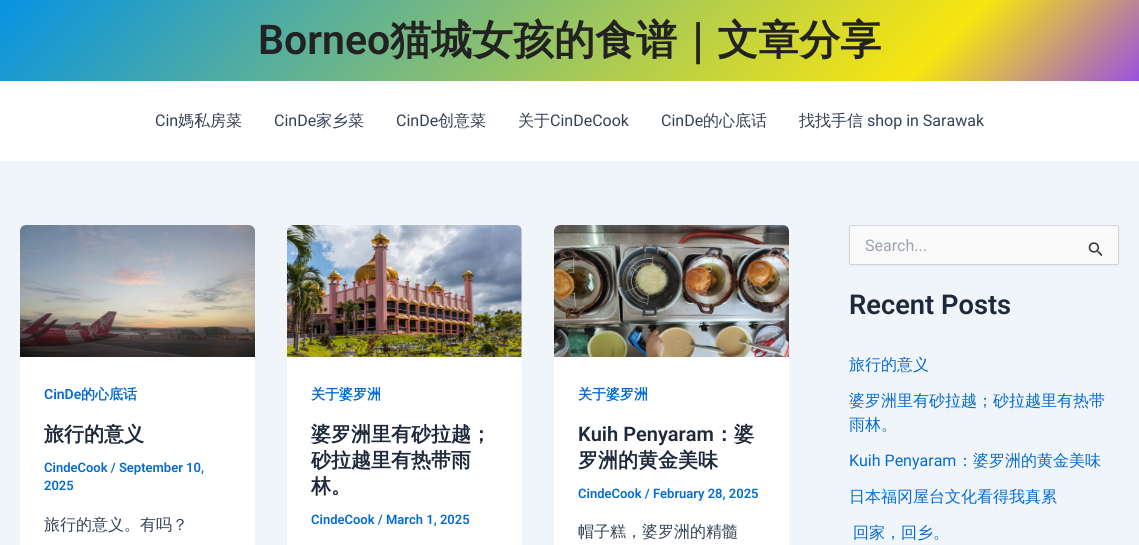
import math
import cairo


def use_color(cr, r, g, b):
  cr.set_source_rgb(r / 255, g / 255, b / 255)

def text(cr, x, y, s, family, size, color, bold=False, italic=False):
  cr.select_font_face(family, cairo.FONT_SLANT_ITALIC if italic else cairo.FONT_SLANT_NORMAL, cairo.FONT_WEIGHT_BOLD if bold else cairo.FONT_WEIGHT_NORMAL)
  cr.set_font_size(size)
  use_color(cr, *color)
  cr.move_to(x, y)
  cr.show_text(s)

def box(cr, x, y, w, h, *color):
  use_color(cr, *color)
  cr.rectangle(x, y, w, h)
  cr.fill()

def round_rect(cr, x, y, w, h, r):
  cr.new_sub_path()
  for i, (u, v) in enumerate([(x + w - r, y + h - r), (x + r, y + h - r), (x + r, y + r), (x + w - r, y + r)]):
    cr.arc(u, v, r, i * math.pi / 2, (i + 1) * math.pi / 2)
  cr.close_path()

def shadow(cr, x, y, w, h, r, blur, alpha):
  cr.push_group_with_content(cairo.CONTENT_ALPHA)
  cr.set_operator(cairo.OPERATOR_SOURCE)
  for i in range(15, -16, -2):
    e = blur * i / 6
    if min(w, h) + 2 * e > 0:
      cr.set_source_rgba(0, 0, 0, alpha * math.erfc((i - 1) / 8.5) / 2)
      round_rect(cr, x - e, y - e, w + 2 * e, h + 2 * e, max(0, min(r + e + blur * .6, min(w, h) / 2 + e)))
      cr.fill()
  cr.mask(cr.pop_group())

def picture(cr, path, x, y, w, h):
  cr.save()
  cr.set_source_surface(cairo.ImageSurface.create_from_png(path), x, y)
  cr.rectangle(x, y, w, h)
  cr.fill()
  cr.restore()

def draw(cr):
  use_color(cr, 240, 245, 250)
  cr.paint()
  gradient = cairo.LinearGradient(264, -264, 875, 346)
  gradient.add_color_stop_rgba(0, 0.024, 0.576, 0.89, 1)
  gradient.add_color_stop_rgba(0.81, 0.973, 0.898, 0.059, 1)
  gradient.add_color_stop_rgba(1, 0.608, 0.318, 0.878, 1)
  cr.set_source(gradient)
  cr.rectangle(0, 0, 1139, 81)
  cr.fill()
  box(cr, 0, 81, 1139, 80, 255, 255, 255)
  round_rect(cr, 20, 225, 235, 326, 6)
  cr.fill()
  picture(cr, "img_01.png", 20, 225, 235, 132)
  round_rect(cr, 287, 225, 235, 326, 6)
  cr.fill()
  picture(cr, "img_02.png", 287, 225, 235, 132)
  round_rect(cr, 554, 225, 235, 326, 6)
  cr.fill()
  picture(cr, "img_03.png", 554, 225, 235, 132)
  use_color(cr, 0, 0, 0)
  shadow(cr, 849, 226, 270, 40, 2, 1, 0.05)
  use_color(cr, 250, 250, 250)
  round_rect(cr, 849.5, 225.5, 269, 39, 1.5)
  cr.fill_preserve()
  use_color(cr, 209, 213, 219)
  cr.set_line_width(1)
  cr.stroke()
  picture(cr, "img_04.png", 1088, 242, 14, 15)
  text(cr, 258, 54, "Borneo", "Roboto SemiBold", 41, (34, 34, 34))
  text(cr, 390, 54, "猫城女孩的食谱｜文章分享", "WenQuanYi Zen Hei", 41, (34, 34, 34), bold=True)
  text(cr, 155, 126, "Cin", "Roboto", 16, (51, 65, 85))
  text(cr, 178, 126, "媽私房菜", "WenQuanYi Zen Hei Medium", 16, (51, 65, 85))
  text(cr, 274, 126, "CinDe", "Roboto", 16, (51, 65, 85))
  text(cr, 316, 126, "家乡菜", "WenQuanYi Zen Hei Medium", 16, (51, 65, 85))
  text(cr, 396, 126, "CinDe", "Roboto", 16, (51, 65, 85))
  text(cr, 438, 126, "创意菜", "WenQuanYi Zen Hei Medium", 16, (51, 65, 85))
  text(cr, 518, 126, "关于", "WenQuanYi Zen Hei Medium", 16, (51, 65, 85))
  text(cr, 550, 126, "CinDeCook", "Roboto", 16, (51, 65, 85))
  text(cr, 661, 126, "CinDe", "Roboto", 16, (51, 65, 85))
  text(cr, 703, 126, "的心底话", "WenQuanYi Zen Hei Medium", 16, (51, 65, 85))
  text(cr, 799, 126, "找找手信", "WenQuanYi Zen Hei Medium", 16, (51, 65, 85))
  text(cr, 867, 126, "shop in Sarawak", "Roboto", 16, (51, 65, 85))
  text(cr, 44, 399, "CinDe", "Roboto SemiBold", 14, (4, 107, 210))
  text(cr, 81, 399, "的心底话", "WenQuanYi Zen Hei", 14, (4, 107, 210), bold=True)
  text(cr, 44, 441, "旅行的意义", "WenQuanYi Zen Hei", 20, (30, 41, 59), bold=True)
  text(cr, 44, 472, "CindeCook / September 10,", "Roboto SemiBold", 13, (4, 107, 210))
  text(cr, 44, 490, "2025", "Roboto SemiBold", 13, (4, 107, 210))
  text(cr, 44, 530, "旅行的意义。有吗？", "WenQuanYi Zen Hei Medium", 16, (51, 65, 85))
  text(cr, 311, 399, "关于婆罗洲", "WenQuanYi Zen Hei", 14, (4, 107, 210), bold=True)
  text(cr, 311, 441, "婆罗洲里有砂拉越；", "WenQuanYi Zen Hei", 20, (30, 41, 59), bold=True)
  text(cr, 311, 467, "砂拉越里有热带雨", "WenQuanYi Zen Hei", 20, (30, 41, 59), bold=True)
  text(cr, 311, 493, "林。", "WenQuanYi Zen Hei", 20, (30, 41, 59), bold=True)
  text(cr, 311, 524, "CindeCook / March 1, 2025", "Roboto SemiBold", 13, (4, 107, 210))
  text(cr, 578, 399, "关于婆罗洲", "WenQuanYi Zen Hei", 14, (4, 107, 210), bold=True)
  text(cr, 578, 441, "Kuih Penyaram", "Roboto SemiBold", 20, (30, 41, 59))
  text(cr, 714, 441, "：婆", "WenQuanYi Zen Hei", 20, (30, 41, 59), bold=True)
  text(cr, 578, 467, "罗洲的黄金美味", "WenQuanYi Zen Hei", 20, (30, 41, 59), bold=True)
  text(cr, 578, 498, "CindeCook / February 28, 2025", "Roboto SemiBold", 13, (4, 107, 210))
  text(cr, 578, 537, "帽子糕，婆罗洲的精髓", "WenQuanYi Zen Hei Medium", 16, (51, 65, 85))
  text(cr, 865, 251, "Search...", "Roboto", 16, (156, 163, 175))
  text(cr, 849, 314, "Recent Posts", "Roboto SemiBold", 27.25, (30, 41, 59))
  text(cr, 849, 370, "旅行的意义", "WenQuanYi Zen Hei Medium", 16, (4, 107, 210))
  text(cr, 849, 406, "婆罗洲里有砂拉越；砂拉越里有热带", "WenQuanYi Zen Hei Medium", 16, (4, 107, 210))
  text(cr, 849, 430, "雨林。", "WenQuanYi Zen Hei Medium", 16, (4, 107, 210))
  text(cr, 849, 466, "Kuih Penyaram", "Roboto", 16, (4, 107, 210))
  text(cr, 957, 466, "：婆罗洲的黄金美味", "WenQuanYi Zen Hei Medium", 16, (4, 107, 210))
  text(cr, 849, 502, "日本福冈屋台文化看得我真累", "WenQuanYi Zen Hei Medium", 16, (4, 107, 210))
  text(cr, 853, 538, "回家，回乡。", "WenQuanYi Zen Hei Medium", 16, (4, 107, 210))


surface = cairo.ImageSurface(cairo.FORMAT_RGB24, 1139, 545)
cr = cairo.Context(surface)
options = cairo.FontOptions()
options.set_hint_metrics(cairo.HINT_METRICS_OFF)
options.set_hint_style(cairo.HINT_STYLE_NONE)
cr.set_font_options(options)
cr.set_miter_limit(4)
draw(cr)
surface.write_to_png("out.png")
